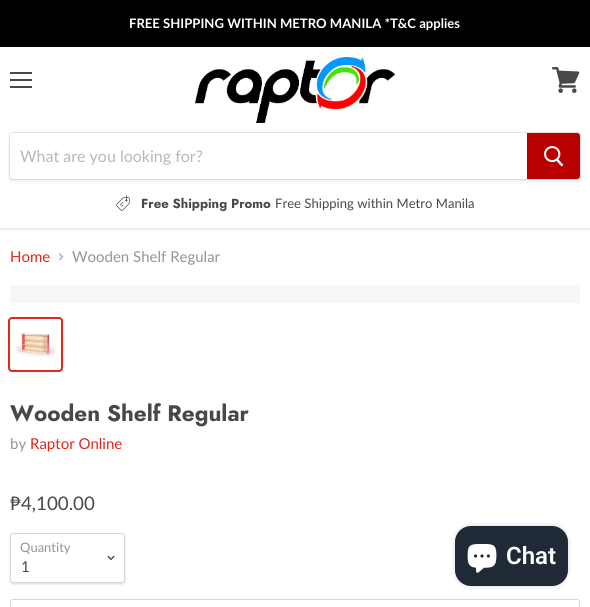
import math
import cairo


def use_color(cr, r, g, b):
  cr.set_source_rgb(r / 255, g / 255, b / 255)

def text(cr, x, y, s, family, size, color, bold=False, italic=False):
  cr.select_font_face(family, cairo.FONT_SLANT_ITALIC if italic else cairo.FONT_SLANT_NORMAL, cairo.FONT_WEIGHT_BOLD if bold else cairo.FONT_WEIGHT_NORMAL)
  cr.set_font_size(size)
  use_color(cr, *color)
  cr.move_to(x, y)
  cr.show_text(s)

def box(cr, x, y, w, h, *color):
  use_color(cr, *color)
  cr.rectangle(x, y, w, h)
  cr.fill()

def round_rect(cr, x, y, w, h, r):
  cr.new_sub_path()
  for i, (u, v) in enumerate([(x + w - r, y + h - r), (x + r, y + h - r), (x + r, y + r), (x + w - r, y + r)]):
    cr.arc(u, v, r, i * math.pi / 2, (i + 1) * math.pi / 2)
  cr.close_path()

def shadow(cr, x, y, w, h, r, blur, alpha):
  cr.push_group_with_content(cairo.CONTENT_ALPHA)
  cr.set_operator(cairo.OPERATOR_SOURCE)
  for i in range(15, -16, -2):
    e = blur * i / 6
    if min(w, h) + 2 * e > 0:
      cr.set_source_rgba(0, 0, 0, alpha * math.erfc((i - 1) / 8.5) / 2)
      round_rect(cr, x - e, y - e, w + 2 * e, h + 2 * e, max(0, min(r + e + blur * .6, min(w, h) / 2 + e)))
      cr.fill()
  cr.mask(cr.pop_group())

def picture(cr, path, x, y, w, h):
  cr.save()
  cr.set_source_surface(cairo.ImageSurface.create_from_png(path), x, y)
  cr.rectangle(x, y, w, h)
  cr.fill()
  cr.restore()

def draw(cr):
  use_color(cr, 255, 255, 255)
  cr.paint()
  box(cr, 0, 0, 590, 47, 0, 0, 0)
  cr.save()
  cr.set_fill_rule(cairo.FILL_RULE_EVEN_ODD)
  cr.new_path()
  cr.move_to(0, 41)
  cr.line_to(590, 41)
  cr.line_to(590, 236)
  cr.line_to(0, 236)
  cr.close_path()
  cr.move_to(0, 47)
  cr.line_to(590, 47)
  cr.line_to(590, 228)
  cr.line_to(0, 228)
  cr.close_path()
  cr.clip()
  use_color(cr, 127, 127, 127)
  shadow(cr, 0, 48, 590, 181, 0, 2, 0.25)
  cr.restore()
  box(cr, 10, 72, 22, 2, 72, 72, 72)
  box(cr, 10, 79, 22, 2, 72, 72, 72)
  box(cr, 10, 86, 22, 2, 72, 72, 72)
  picture(cr, "img_01.png", 552, 67, 28, 26)
  picture(cr, "img_02.png", 195, 57, 200, 66)
  use_color(cr, 127, 127, 127)
  shadow(cr, 9, 134, 572, 48, 4, 1.5, 0.11)
  round_rect(cr, 9.5, 132.5, 571, 47, 3.5)
  cr.set_source_rgba(0.498, 0.498, 0.498, 0.2)
  cr.set_line_width(1)
  cr.stroke()
  use_color(cr, 255, 255, 255)
  cr.new_path()
  cr.move_to(13, 133)
  cr.line_to(527, 133)
  cr.line_to(527, 179)
  cr.line_to(13, 179)
  cr.curve_to(11.5, 179, 10, 177.5, 10, 176)
  cr.line_to(10, 136)
  cr.curve_to(10, 134.5, 11.5, 133, 13, 133)
  cr.close_path()
  cr.fill()
  use_color(cr, 184, 0, 0)
  cr.new_path()
  cr.move_to(527.5, 133.5)
  cr.line_to(577, 133.5)
  cr.curve_to(578.5, 133.5, 579.5, 134.5, 579.5, 136)
  cr.line_to(579.5, 176)
  cr.curve_to(579.5, 177.5, 578.5, 178.5, 577, 178.5)
  cr.line_to(527.5, 178.5)
  cr.close_path()
  cr.fill_preserve()
  cr.stroke()
  picture(cr, "img_03.png", 544, 146, 20, 21)
  picture(cr, "img_04.png", 116, 195, 14, 16)
  picture(cr, "img_05.png", 59, 253, 5, 8)
  box(cr, 10, 285, 570, 18, 247, 247, 247)
  round_rect(cr, 9, 318, 53, 53, 3)
  use_color(cr, 227, 38, 25)
  cr.set_line_width(2)
  cr.stroke()
  picture(cr, "img_06.png", 15, 331, 42, 27)
  use_color(cr, 0, 0, 0)
  shadow(cr, 10, 534, 115, 50, 3, 1, 0.15)
  use_color(cr, 255, 255, 255)
  round_rect(cr, 10.5, 533.5, 114, 49, 2.5)
  cr.fill_preserve()
  use_color(cr, 216, 216, 216)
  cr.set_line_width(1)
  cr.stroke()
  picture(cr, "img_07.png", 107, 555, 8, 6)
  round_rect(cr, 10.5, 599.5, 569, 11, 2.5)
  cr.stroke()
  use_color(cr, 0, 0, 0)
  shadow(cr, 455, 526, 113, 60, 16, 2.5, 0.15)
  use_color(cr, 32, 42, 54)
  round_rect(cr, 455, 526, 113, 60, 16)
  cr.fill()
  picture(cr, "img_08.png", 467, 544, 30, 29)
  text(cr, 129, 28, "FREE SHIPPING WITHIN METRO MANILA *T&C applies", "Lato", 13.1, (255, 255, 255), bold=True)
  text(cr, 20, 162, "What are you looking for?", "Lato", 16, (184, 184, 184))
  text(cr, 141, 208, "Free Shipping Promo", "Jost", 13.1, (72, 72, 72), bold=True)
  text(cr, 275, 208, "Free Shipping within Metro Manila", "Lato", 13.1, (72, 72, 72))
  text(cr, 10, 262, "Home", "Lato", 15, (227, 38, 25))
  text(cr, 72, 262, "Wooden Shelf Regular", "Lato", 15, (148, 148, 148))
  text(cr, 10, 421, "Wooden Shelf Regular", "Jost", 22.5, (72, 72, 72), bold=True)
  text(cr, 10, 449, "by", "Lato", 15, (148, 148, 148))
  text(cr, 30, 449, "Raptor Online", "Lato", 15, (227, 38, 25))
  text(cr, 10, 510, "₱4,100.00", "Lato", 18.75, (72, 72, 72))
  text(cr, 20, 552, "Quantity", "Lato", 13, (148, 148, 148))
  text(cr, 21, 572, "1", "Lato", 15, (72, 72, 72))
  text(cr, 506, 564, "Chat", "Roboto SemiBold", 24, (255, 255, 255))


surface = cairo.ImageSurface(cairo.FORMAT_RGB24, 590, 607)
cr = cairo.Context(surface)
options = cairo.FontOptions()
options.set_hint_metrics(cairo.HINT_METRICS_OFF)
options.set_hint_style(cairo.HINT_STYLE_NONE)
cr.set_font_options(options)
cr.set_miter_limit(4)
draw(cr)
surface.write_to_png("out.png")
